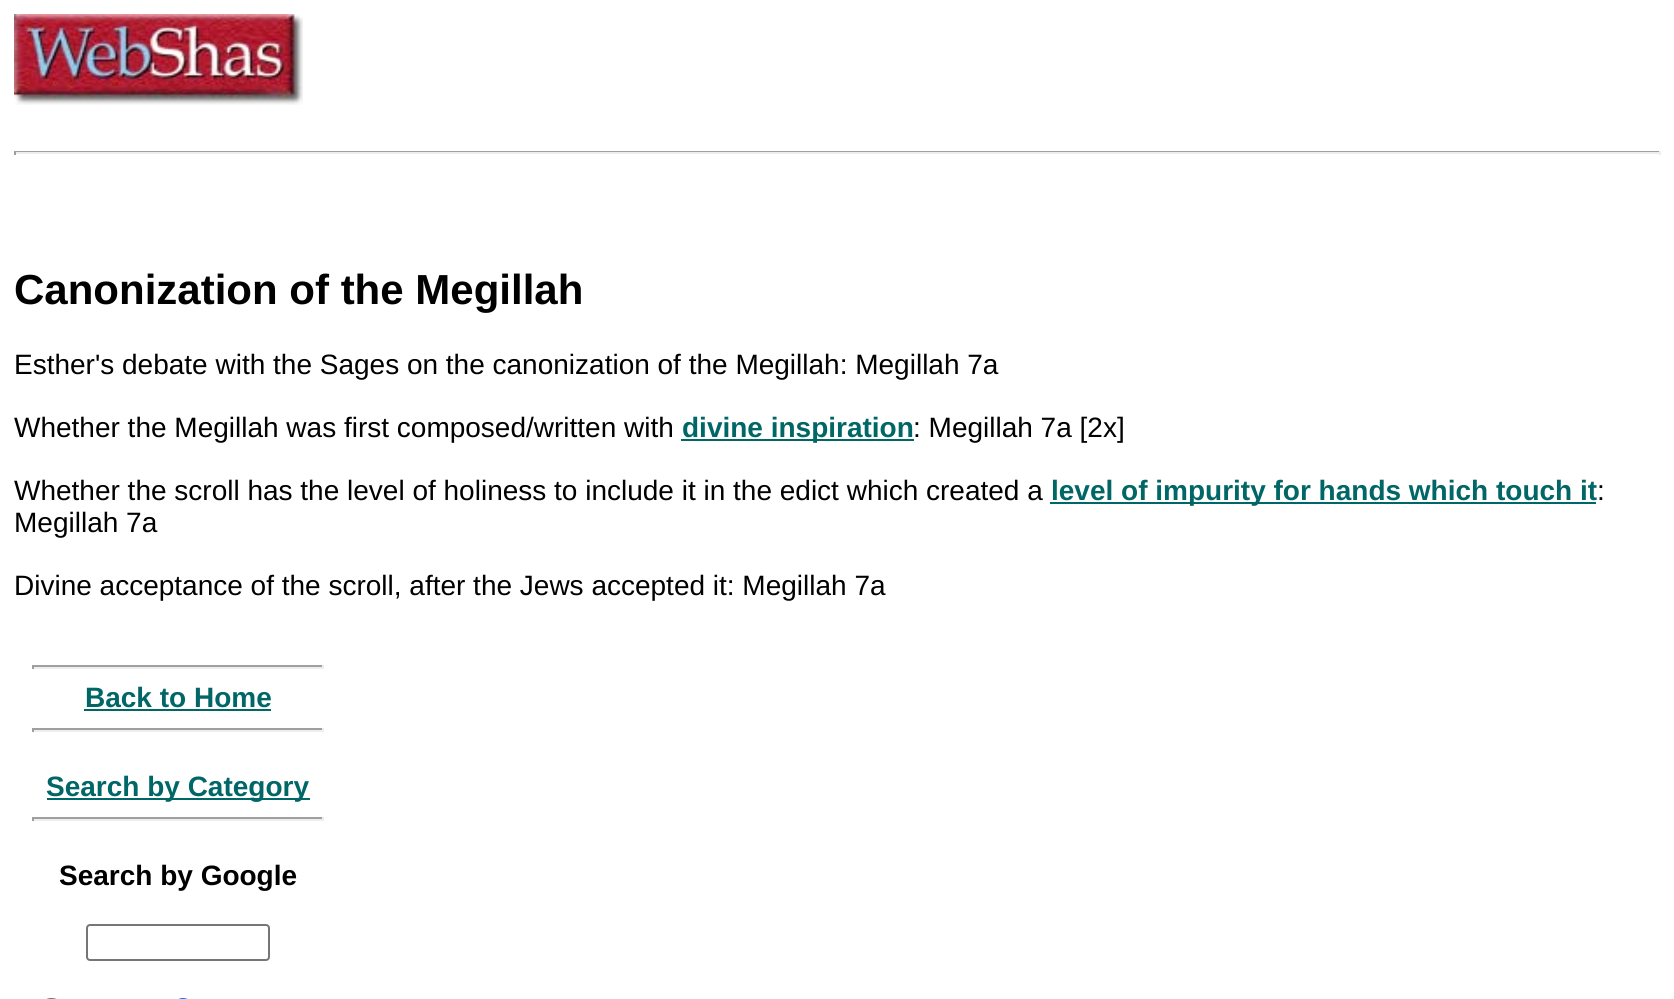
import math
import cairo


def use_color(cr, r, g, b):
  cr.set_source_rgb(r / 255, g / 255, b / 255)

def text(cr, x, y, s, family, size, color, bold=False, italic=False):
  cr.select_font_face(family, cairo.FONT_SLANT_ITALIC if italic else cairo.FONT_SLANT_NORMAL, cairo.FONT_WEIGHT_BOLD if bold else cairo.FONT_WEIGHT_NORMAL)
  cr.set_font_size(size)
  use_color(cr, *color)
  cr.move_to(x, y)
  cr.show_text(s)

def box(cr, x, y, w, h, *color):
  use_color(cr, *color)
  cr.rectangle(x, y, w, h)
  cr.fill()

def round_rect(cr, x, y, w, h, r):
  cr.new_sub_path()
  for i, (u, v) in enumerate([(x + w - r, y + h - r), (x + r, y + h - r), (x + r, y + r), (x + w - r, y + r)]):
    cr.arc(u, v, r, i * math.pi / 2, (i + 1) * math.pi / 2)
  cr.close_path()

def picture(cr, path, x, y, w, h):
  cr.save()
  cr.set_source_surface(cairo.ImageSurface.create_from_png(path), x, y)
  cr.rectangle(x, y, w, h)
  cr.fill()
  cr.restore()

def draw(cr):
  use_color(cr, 255, 255, 255)
  cr.paint()
  picture(cr, "img_01.png", 14, 14, 289, 91)
  box(cr, 14, 151, 1647, 1, 159, 159, 159)
  box(cr, 1659, 151, 2, 4, 238, 238, 238)
  box(cr, 14, 152, 1647, 2, 238, 238, 238)
  box(cr, 14, 151, 2, 4, 159, 159, 159)
  box(cr, 681, 439, 233, 2, 0, 102, 102)
  box(cr, 1050, 502, 546, 2, 0, 102, 102)
  box(cr, 32, 665, 292, 2, 159, 159, 159)
  box(cr, 322, 665, 2, 4, 238, 238, 238)
  box(cr, 32, 667, 292, 2, 238, 238, 238)
  box(cr, 32, 665, 2, 4, 159, 159, 159)
  box(cr, 84, 709, 187, 2, 0, 102, 102)
  box(cr, 32, 728, 292, 2, 159, 159, 159)
  box(cr, 322, 728, 2, 4, 238, 238, 238)
  box(cr, 32, 730, 292, 2, 238, 238, 238)
  box(cr, 32, 728, 2, 4, 159, 159, 159)
  box(cr, 47, 798, 263, 2, 0, 102, 102)
  box(cr, 32, 817, 292, 2, 159, 159, 159)
  box(cr, 322, 817, 2, 4, 238, 238, 238)
  box(cr, 32, 819, 292, 2, 238, 238, 238)
  box(cr, 32, 817, 2, 4, 159, 159, 159)
  round_rect(cr, 87, 925, 182, 35, 3)
  use_color(cr, 118, 118, 118)
  cr.stroke()
  round_rect(cr, 41, 999, 21, 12, 10)
  cr.stroke()
  round_rect(cr, 173, 999, 20, 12, 10)
  use_color(cr, 0, 117, 255)
  cr.stroke()
  text(cr, 14, 304, "Canonization of the Megillah", "Liberation Sans", 42, (0, 0, 0), bold=True)
  text(cr, 14, 374, "Esther's debate with the Sages on the canonization of the Megillah: Megillah 7a", "Liberation Sans", 28, (0, 0, 0))
  text(cr, 14, 437, "Whether the Megillah was first composed/written with", "Liberation Sans", 28, (0, 0, 0))
  text(cr, 682, 437, "divine inspiration", "Liberation Sans", 28, (0, 102, 102), bold=True)
  text(cr, 913, 437, ": Megillah 7a [2x]", "Liberation Sans", 28, (0, 0, 0))
  text(cr, 14, 500, "Whether the scroll has the level of holiness to include it in the edict which created a", "Liberation Sans", 28, (0, 0, 0))
  text(cr, 1051, 500, "level of impurity for hands which touch it", "Liberation Sans", 28, (0, 102, 102), bold=True)
  text(cr, 1597, 500, ":", "Liberation Sans", 28, (0, 0, 0))
  text(cr, 14, 532, "Megillah 7a", "Liberation Sans", 28, (0, 0, 0))
  text(cr, 14, 595, "Divine acceptance of the scroll, after the Jews accepted it: Megillah 7a", "Liberation Sans", 28, (0, 0, 0))
  text(cr, 85, 707, "Back to Home", "Liberation Sans", 28, (0, 102, 102), bold=True)
  text(cr, 46, 796, "Search by Category", "Liberation Sans", 28, (0, 102, 102), bold=True)
  text(cr, 59, 885, "Search by Google", "Liberation Sans", 28, (0, 0, 0), bold=True)


surface = cairo.ImageSurface(cairo.FORMAT_RGB24, 1674, 999)
cr = cairo.Context(surface)
options = cairo.FontOptions()
options.set_hint_metrics(cairo.HINT_METRICS_OFF)
options.set_hint_style(cairo.HINT_STYLE_NONE)
cr.set_font_options(options)
cr.set_miter_limit(4)
draw(cr)
surface.write_to_png("out.png")
